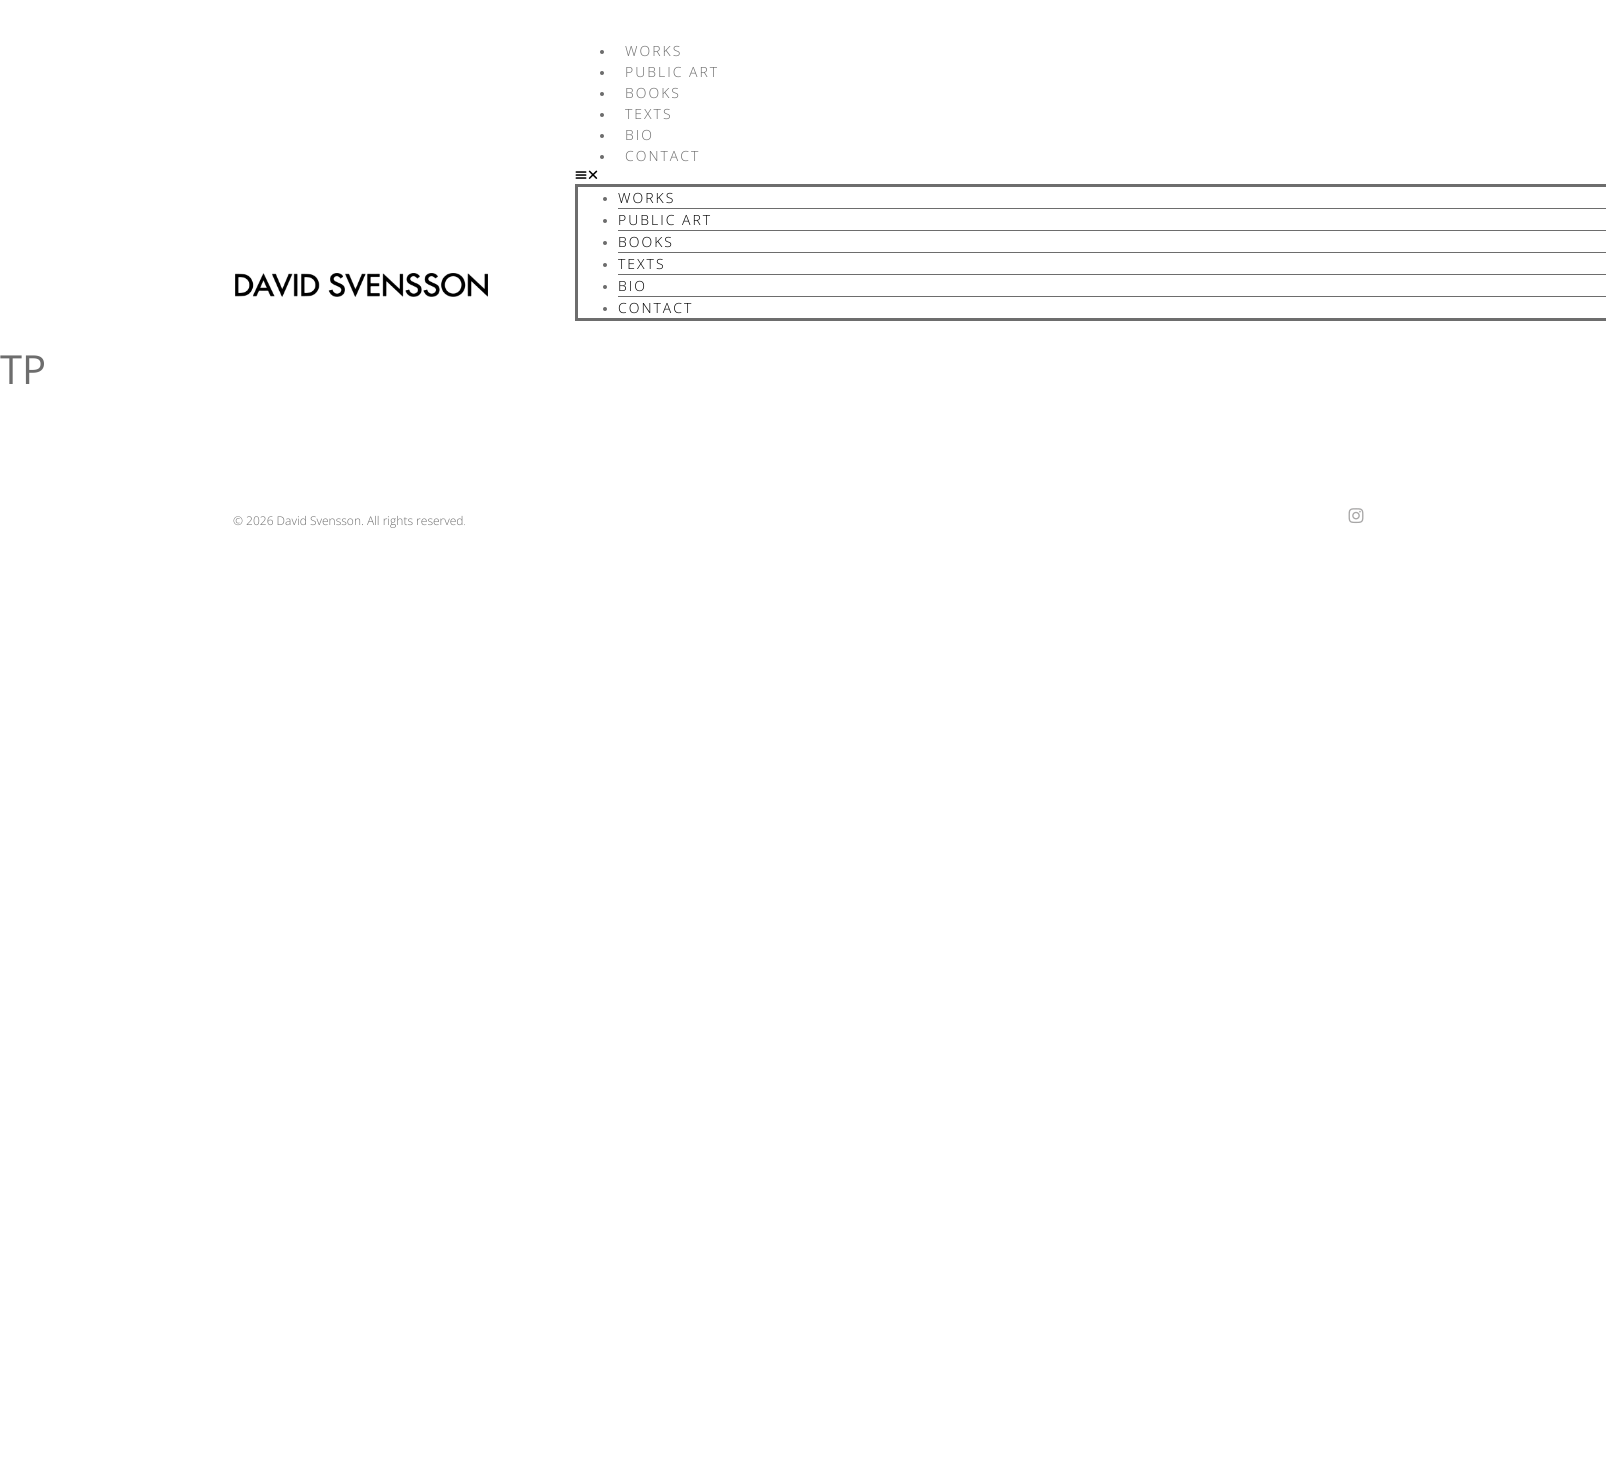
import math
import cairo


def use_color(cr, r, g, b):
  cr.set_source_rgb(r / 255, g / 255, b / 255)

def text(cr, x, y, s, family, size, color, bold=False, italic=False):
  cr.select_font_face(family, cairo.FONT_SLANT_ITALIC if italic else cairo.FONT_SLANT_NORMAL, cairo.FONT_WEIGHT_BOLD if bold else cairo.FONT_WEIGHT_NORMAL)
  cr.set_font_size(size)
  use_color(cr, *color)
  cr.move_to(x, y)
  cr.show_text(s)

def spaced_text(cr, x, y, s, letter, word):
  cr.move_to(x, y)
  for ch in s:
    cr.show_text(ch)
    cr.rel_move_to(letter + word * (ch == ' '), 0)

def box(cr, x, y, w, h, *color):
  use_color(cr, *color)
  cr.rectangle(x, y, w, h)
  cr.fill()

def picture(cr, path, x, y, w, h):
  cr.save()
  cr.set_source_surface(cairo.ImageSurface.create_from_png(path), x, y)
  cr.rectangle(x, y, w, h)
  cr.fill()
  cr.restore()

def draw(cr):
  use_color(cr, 255, 255, 255)
  cr.paint()
  picture(cr, "img_01.png", 235, 273, 253, 24)
  use_color(cr, 109, 109, 109)
  cr.arc(602, 52, 2, 0, 2 * math.pi)
  cr.fill()
  cr.arc(602, 73, 2, 0, 2 * math.pi)
  cr.fill()
  cr.arc(602, 94, 2, 0, 2 * math.pi)
  cr.fill()
  cr.arc(602, 115, 2, 0, 2 * math.pi)
  cr.fill()
  cr.arc(602, 136, 2, 0, 2 * math.pi)
  cr.fill()
  cr.arc(602, 157, 2, 0, 2 * math.pi)
  cr.fill()
  picture(cr, "img_02.png", 575, 171, 12, 8)
  picture(cr, "img_03.png", 588, 170, 10, 9)
  cr.rectangle(576.5, 185.5, 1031, 134)
  cr.set_line_width(3)
  cr.stroke()
  box(cr, 618, 208, 988, 1, 109, 109, 109)
  cr.arc(605, 199, 2, 0, 2 * math.pi)
  cr.fill()
  box(cr, 618, 230, 988, 1, 109, 109, 109)
  cr.arc(605, 221, 2, 0, 2 * math.pi)
  cr.fill()
  box(cr, 618, 252, 988, 1, 109, 109, 109)
  cr.arc(605, 243, 2, 0, 2 * math.pi)
  cr.fill()
  box(cr, 618, 274, 988, 1, 109, 109, 109)
  cr.arc(605, 265, 2, 0, 2 * math.pi)
  cr.fill()
  box(cr, 618, 296, 988, 1, 109, 109, 109)
  cr.arc(605, 287, 2, 0, 2 * math.pi)
  cr.fill()
  cr.arc(605, 309, 2, 0, 2 * math.pi)
  cr.fill()
  picture(cr, "img_04.png", 1348, 508, 16, 16)
  cr.select_font_face("Open Sans Light")
  cr.set_font_size(14)
  spaced_text(cr, 625, 56, "WORKS", 2, 0)
  spaced_text(cr, 625, 77, "PUBLIC ART", 2, 0)
  spaced_text(cr, 625, 98, "BOOKS", 2, 0)
  spaced_text(cr, 625, 119, "TEXTS", 2, 0)
  spaced_text(cr, 625, 140, "BIO", 2, 0)
  spaced_text(cr, 625, 161, "CONTACT", 2, 0)
  use_color(cr, 0, 0, 0)
  spaced_text(cr, 618, 203, "WORKS", 2, 0)
  spaced_text(cr, 618, 225, "PUBLIC ART", 2, 0)
  spaced_text(cr, 618, 247, "BOOKS", 2, 0)
  spaced_text(cr, 618, 269, "TEXTS", 2, 0)
  spaced_text(cr, 618, 291, "BIO", 2, 0)
  spaced_text(cr, 618, 313, "CONTACT", 2, 0)
  text(cr, 0, 384, "TP", "Open Sans", 40, (109, 109, 109))
  text(cr, 233, 525, "© 2026 David Svensson. All rights reserved.", "Open Sans Light", 12, (109, 109, 109))


surface = cairo.ImageSurface(cairo.FORMAT_RGB24, 1606, 1482)
cr = cairo.Context(surface)
options = cairo.FontOptions()
options.set_hint_metrics(cairo.HINT_METRICS_OFF)
options.set_hint_style(cairo.HINT_STYLE_NONE)
cr.set_font_options(options)
cr.set_miter_limit(4)
draw(cr)
surface.write_to_png("out.png")
